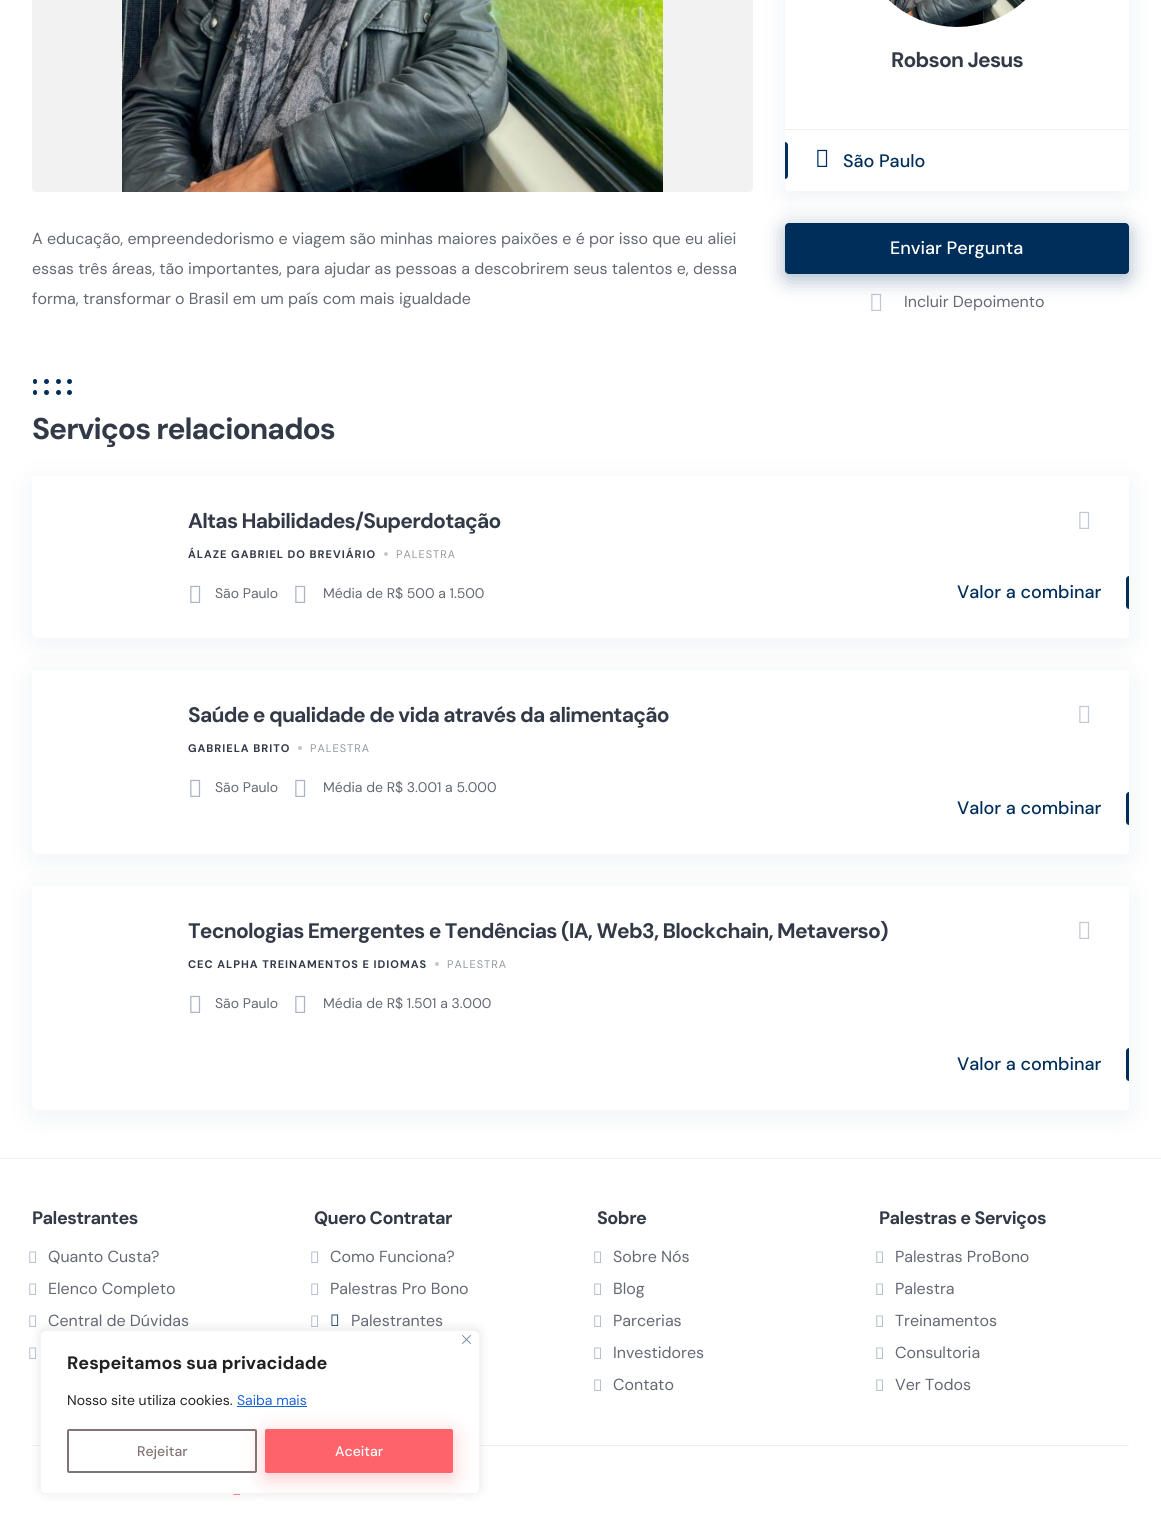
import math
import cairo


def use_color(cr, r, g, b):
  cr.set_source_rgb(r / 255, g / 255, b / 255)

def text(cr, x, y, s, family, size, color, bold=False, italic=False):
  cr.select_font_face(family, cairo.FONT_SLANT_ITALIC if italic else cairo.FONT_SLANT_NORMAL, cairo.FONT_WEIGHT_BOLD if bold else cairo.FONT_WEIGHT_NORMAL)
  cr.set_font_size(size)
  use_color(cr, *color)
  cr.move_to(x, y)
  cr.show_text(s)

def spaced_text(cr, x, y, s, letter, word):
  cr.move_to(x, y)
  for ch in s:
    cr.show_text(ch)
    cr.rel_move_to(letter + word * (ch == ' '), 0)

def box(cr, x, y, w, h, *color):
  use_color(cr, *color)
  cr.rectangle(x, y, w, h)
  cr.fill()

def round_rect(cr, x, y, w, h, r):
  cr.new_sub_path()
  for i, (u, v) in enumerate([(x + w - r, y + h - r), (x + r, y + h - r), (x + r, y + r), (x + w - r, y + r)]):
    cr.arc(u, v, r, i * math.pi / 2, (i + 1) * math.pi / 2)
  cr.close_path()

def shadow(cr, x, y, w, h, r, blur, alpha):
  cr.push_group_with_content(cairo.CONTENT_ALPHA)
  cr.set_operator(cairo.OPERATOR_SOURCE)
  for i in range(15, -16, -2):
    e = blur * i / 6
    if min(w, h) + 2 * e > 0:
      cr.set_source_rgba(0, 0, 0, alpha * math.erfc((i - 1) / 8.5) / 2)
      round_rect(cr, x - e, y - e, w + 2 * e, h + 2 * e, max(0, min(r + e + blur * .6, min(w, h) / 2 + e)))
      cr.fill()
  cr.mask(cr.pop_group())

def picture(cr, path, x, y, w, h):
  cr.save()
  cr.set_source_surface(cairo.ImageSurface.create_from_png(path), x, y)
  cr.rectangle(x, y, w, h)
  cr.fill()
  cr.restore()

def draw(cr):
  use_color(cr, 255, 255, 255)
  cr.paint()
  use_color(cr, 242, 242, 242)
  round_rect(cr, 32, -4, 721, 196, 4)
  cr.fill()
  picture(cr, "img_01.png", 122, 0, 541, 192)
  cr.save()
  cr.set_fill_rule(cairo.FILL_RULE_EVEN_ODD)
  cr.new_path()
  cr.move_to(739, 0)
  cr.line_to(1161, 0)
  cr.line_to(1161, 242)
  cr.line_to(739, 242)
  cr.close_path()
  cr.move_to(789, -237)
  cr.line_to(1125, -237)
  cr.curve_to(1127, -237, 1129, -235, 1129, -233)
  cr.line_to(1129, 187)
  cr.curve_to(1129, 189, 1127, 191, 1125, 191)
  cr.line_to(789, 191)
  cr.curve_to(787, 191, 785, 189, 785, 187)
  cr.line_to(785, -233)
  cr.curve_to(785, -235, 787, -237, 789, -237)
  cr.close_path()
  cr.clip()
  use_color(cr, 7, 36, 86)
  shadow(cr, 785, -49, 344, 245, 4, 15, 0.07)
  cr.restore()
  picture(cr, "img_02.png", 888, 0, 137, 27)
  box(cr, 785, 129, 344, 1, 236, 239, 242)
  use_color(cr, 0, 46, 91)
  cr.new_path()
  cr.move_to(785, 142)
  cr.curve_to(786.5, 142, 788, 143.5, 788, 145)
  cr.line_to(788, 176)
  cr.curve_to(788, 177.5, 786.5, 179, 785, 179)
  cr.close_path()
  cr.fill()
  picture(cr, "img_03.png", 817, 149, 11, 18)
  picture(cr, "img_04.png", 871, 293, 11, 18)
  use_color(cr, 0, 46, 91)
  shadow(cr, 785, 228, 344, 51, 4, 10.5, 0.35)
  use_color(cr, 0, 46, 91)
  round_rect(cr, 785, 223, 344, 51, 4)
  cr.fill()
  cr.arc(69.5, 392.5, 2.5, 0, 2 * math.pi)
  cr.fill()
  cr.arc(58.5, 392.5, 2.5, 0, 2 * math.pi)
  cr.fill()
  cr.arc(46.5, 392.5, 2.5, 0, 2 * math.pi)
  cr.fill()
  round_rect(cr, 33, 390, 4, 5, 2)
  cr.fill()
  cr.arc(69.5, 381.5, 2.5, 0, 2 * math.pi)
  cr.fill()
  cr.arc(58.5, 381.5, 2.5, 0, 2 * math.pi)
  cr.fill()
  cr.arc(46.5, 381.5, 2.5, 0, 2 * math.pi)
  cr.fill()
  round_rect(cr, 33, 379, 4, 5, 2)
  cr.fill()
  cr.save()
  cr.set_fill_rule(cairo.FILL_RULE_EVEN_ODD)
  cr.new_path()
  cr.move_to(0, 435)
  cr.line_to(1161, 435)
  cr.line_to(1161, 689)
  cr.line_to(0, 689)
  cr.close_path()
  cr.move_to(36, 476)
  cr.line_to(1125, 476)
  cr.curve_to(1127, 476, 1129, 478, 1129, 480)
  cr.line_to(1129, 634)
  cr.curve_to(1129, 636, 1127, 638, 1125, 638)
  cr.line_to(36, 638)
  cr.curve_to(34, 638, 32, 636, 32, 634)
  cr.line_to(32, 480)
  cr.curve_to(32, 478, 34, 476, 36, 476)
  cr.close_path()
  cr.clip()
  use_color(cr, 7, 36, 86)
  shadow(cr, 32, 481, 1097, 162, 4, 15, 0.07)
  cr.restore()
  use_color(cr, 193, 200, 213)
  cr.arc(386, 554, 2, 0, 2 * math.pi)
  cr.fill()
  picture(cr, "img_05.png", 190, 585, 11, 18)
  picture(cr, "img_05.png", 295, 585, 11, 18)
  picture(cr, "img_04.png", 1079, 511, 11, 18)
  use_color(cr, 0, 46, 91)
  cr.new_path()
  cr.move_to(1129, 576)
  cr.line_to(1129, 609)
  cr.curve_to(1127.5, 609, 1126, 607.5, 1126, 606)
  cr.line_to(1126, 579)
  cr.curve_to(1126, 577.5, 1127.5, 576, 1129, 576)
  cr.close_path()
  cr.fill()
  cr.save()
  cr.set_fill_rule(cairo.FILL_RULE_EVEN_ODD)
  cr.new_path()
  cr.move_to(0, 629)
  cr.line_to(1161, 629)
  cr.line_to(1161, 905)
  cr.line_to(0, 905)
  cr.close_path()
  cr.move_to(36, 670)
  cr.line_to(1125, 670)
  cr.curve_to(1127, 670, 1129, 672, 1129, 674)
  cr.line_to(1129, 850)
  cr.curve_to(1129, 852, 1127, 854, 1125, 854)
  cr.line_to(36, 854)
  cr.curve_to(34, 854, 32, 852, 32, 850)
  cr.line_to(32, 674)
  cr.curve_to(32, 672, 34, 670, 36, 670)
  cr.close_path()
  cr.clip()
  use_color(cr, 7, 36, 86)
  shadow(cr, 32, 675, 1097, 184, 4, 15, 0.07)
  cr.restore()
  use_color(cr, 193, 200, 213)
  cr.arc(300, 748, 2, 0, 2 * math.pi)
  cr.fill()
  picture(cr, "img_05.png", 190, 779, 11, 18)
  picture(cr, "img_05.png", 295, 779, 11, 18)
  picture(cr, "img_04.png", 1079, 705, 11, 18)
  use_color(cr, 0, 46, 91)
  cr.new_path()
  cr.move_to(1129, 792)
  cr.line_to(1129, 825)
  cr.curve_to(1127.5, 825, 1126, 823.5, 1126, 822)
  cr.line_to(1126, 795)
  cr.curve_to(1126, 793.5, 1127.5, 792, 1129, 792)
  cr.close_path()
  cr.fill()
  box(cr, 0, 1158, 1161, 1, 236, 239, 242)
  cr.save()
  cr.set_fill_rule(cairo.FILL_RULE_EVEN_ODD)
  cr.new_path()
  cr.move_to(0, 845)
  cr.line_to(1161, 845)
  cr.line_to(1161, 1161)
  cr.line_to(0, 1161)
  cr.close_path()
  cr.move_to(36, 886)
  cr.line_to(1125, 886)
  cr.curve_to(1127, 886, 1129, 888, 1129, 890)
  cr.line_to(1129, 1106)
  cr.curve_to(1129, 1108, 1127, 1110, 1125, 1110)
  cr.line_to(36, 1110)
  cr.curve_to(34, 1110, 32, 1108, 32, 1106)
  cr.line_to(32, 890)
  cr.curve_to(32, 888, 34, 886, 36, 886)
  cr.close_path()
  cr.clip()
  use_color(cr, 7, 36, 86)
  shadow(cr, 32, 891, 1097, 224, 4, 15, 0.07)
  cr.restore()
  use_color(cr, 193, 200, 213)
  cr.arc(437, 964, 2, 0, 2 * math.pi)
  cr.fill()
  picture(cr, "img_05.png", 190, 995, 11, 18)
  picture(cr, "img_05.png", 295, 995, 11, 18)
  picture(cr, "img_04.png", 1079, 921, 11, 18)
  use_color(cr, 0, 46, 91)
  cr.new_path()
  cr.move_to(1129, 1048)
  cr.line_to(1129, 1081)
  cr.curve_to(1127.5, 1081, 1126, 1079.5, 1126, 1078)
  cr.line_to(1126, 1051)
  cr.curve_to(1126, 1049.5, 1127.5, 1048, 1129, 1048)
  cr.close_path()
  cr.fill()
  box(cr, 32, 1445, 1097, 1, 236, 239, 242)
  picture(cr, "img_06.png", 29, 1251, 7, 12)
  picture(cr, "img_06.png", 29, 1283, 7, 12)
  picture(cr, "img_06.png", 29, 1315, 7, 12)
  picture(cr, "img_06.png", 29, 1347, 7, 12)
  picture(cr, "img_06.png", 311, 1251, 7, 12)
  picture(cr, "img_06.png", 311, 1283, 7, 12)
  picture(cr, "img_06.png", 311, 1315, 7, 12)
  picture(cr, "img_07.png", 331, 1314, 8, 12)
  picture(cr, "img_06.png", 594, 1251, 7, 12)
  picture(cr, "img_06.png", 594, 1283, 7, 12)
  picture(cr, "img_06.png", 594, 1315, 7, 12)
  picture(cr, "img_06.png", 594, 1347, 7, 12)
  picture(cr, "img_06.png", 594, 1379, 7, 12)
  picture(cr, "img_06.png", 876, 1251, 7, 12)
  picture(cr, "img_06.png", 876, 1283, 7, 12)
  picture(cr, "img_06.png", 876, 1315, 7, 12)
  picture(cr, "img_06.png", 876, 1347, 7, 12)
  picture(cr, "img_06.png", 876, 1379, 7, 12)
  picture(cr, "img_08.png", 233, 1494, 8, 1)
  use_color(cr, 172, 171, 171)
  shadow(cr, 40, 1329, 440, 164, 6, 5, 0.3)
  use_color(cr, 255, 255, 255)
  round_rect(cr, 40.5, 1330.5, 439, 163, 5.5)
  cr.fill_preserve()
  use_color(cr, 244, 244, 244)
  cr.set_line_width(1)
  cr.stroke()
  picture(cr, "img_09.png", 462, 1335, 9, 9)
  box(cr, 237, 1406, 70, 1, 24, 99, 220)
  round_rect(cr, 68, 1430, 188, 42, 1)
  use_color(cr, 131, 115, 116)
  cr.set_line_width(2)
  cr.stroke()
  use_color(cr, 255, 99, 106)
  shadow(cr, 265, 1434, 188, 44, 2, 10.5, 0.35)
  use_color(cr, 255, 99, 106)
  round_rect(cr, 266, 1430, 186, 42, 1)
  cr.fill_preserve()
  cr.stroke()
  text(cr, 32, 244, "A educação, empreendedorismo e viagem são minhas maiores paixões e é por isso que eu aliei", "DM Sans", 16, (99, 104, 115))
  text(cr, 32, 274, "essas três áreas, tão importantes, para ajudar as pessoas a descobrirem seus talentos e, dessa", "DM Sans", 16, (99, 104, 115))
  text(cr, 32, 304, "forma, transformar o Brasil em um país com mais igualdade", "DM Sans", 16, (99, 104, 115))
  cr.select_font_face("DM Sans", cairo.FONT_SLANT_NORMAL, cairo.FONT_WEIGHT_BOLD)
  cr.set_font_size(21)
  use_color(cr, 51, 58, 71)
  spaced_text(cr, 891, 67, "Robson Jesus", -0.75, 0)
  text(cr, 843, 167, "São Paulo", "DM Sans Medium", 18, (0, 46, 91))
  text(cr, 890, 254, "Enviar Pergunta", "DM Sans Medium", 18, (255, 255, 255))
  text(cr, 904, 307, "Incluir Depoimento", "DM Sans", 16, (99, 104, 115))
  cr.select_font_face("DM Sans", cairo.FONT_SLANT_NORMAL, cairo.FONT_WEIGHT_BOLD)
  cr.set_font_size(30)
  use_color(cr, 51, 58, 71)
  spaced_text(cr, 32, 439, "Serviços relacionados", -1, 0)
  cr.set_font_size(21)
  spaced_text(cr, 188, 528, "Altas Habilidades/Superdotação", -0.75, 0)
  cr.set_font_size(11)
  spaced_text(cr, 188, 558, "ÁLAZE GABRIEL DO BREVIÁRIO", 1, 0)
  cr.select_font_face("DM Sans")
  use_color(cr, 147, 151, 158)
  spaced_text(cr, 396, 558, "PALESTRA", 1, 0)
  text(cr, 215, 598, "São Paulo", "DM Sans", 14, (99, 104, 115))
  text(cr, 323, 598, "Média de R$ 500 a 1.500", "DM Sans", 14, (99, 104, 115))
  text(cr, 957, 598, "Valor a combinar", "DM Sans Medium", 18, (0, 46, 91))
  cr.select_font_face("DM Sans", cairo.FONT_SLANT_NORMAL, cairo.FONT_WEIGHT_BOLD)
  cr.set_font_size(21)
  use_color(cr, 51, 58, 71)
  spaced_text(cr, 188, 722, "Saúde e qualidade de vida através da alimentação", -0.75, 0)
  cr.set_font_size(11)
  spaced_text(cr, 188, 752, "GABRIELA BRITO", 1, 0)
  cr.select_font_face("DM Sans")
  use_color(cr, 147, 151, 158)
  spaced_text(cr, 310, 752, "PALESTRA", 1, 0)
  text(cr, 215, 792, "São Paulo", "DM Sans", 14, (99, 104, 115))
  text(cr, 323, 792, "Média de R$ 3.001 a 5.000", "DM Sans", 14, (99, 104, 115))
  text(cr, 957, 814, "Valor a combinar", "DM Sans Medium", 18, (0, 46, 91))
  cr.select_font_face("DM Sans", cairo.FONT_SLANT_NORMAL, cairo.FONT_WEIGHT_BOLD)
  cr.set_font_size(21)
  use_color(cr, 51, 58, 71)
  spaced_text(cr, 188, 938, "Tecnologias Emergentes e Tendências (IA, Web3, Blockchain, Metaverso)", -0.75, 0)
  cr.set_font_size(11)
  spaced_text(cr, 188, 968, "CEC ALPHA TREINAMENTOS E IDIOMAS", 1, 0)
  cr.select_font_face("DM Sans")
  use_color(cr, 147, 151, 158)
  spaced_text(cr, 447, 968, "PALESTRA", 1, 0)
  text(cr, 215, 1008, "São Paulo", "DM Sans", 14, (99, 104, 115))
  text(cr, 323, 1008, "Média de R$ 1.501 a 3.000", "DM Sans", 14, (99, 104, 115))
  text(cr, 957, 1070, "Valor a combinar", "DM Sans Medium", 18, (0, 46, 91))
  cr.select_font_face("DM Sans", cairo.FONT_SLANT_NORMAL, cairo.FONT_WEIGHT_BOLD)
  use_color(cr, 51, 58, 71)
  spaced_text(cr, 32, 1224, "Palestrantes", -0.5, 0)
  text(cr, 48, 1262, "Quanto Custa?", "DM Sans", 16, (99, 104, 115))
  text(cr, 48, 1294, "Elenco Completo", "DM Sans", 16, (99, 104, 115))
  text(cr, 48, 1326, "Central de Dúvidas", "DM Sans", 16, (99, 104, 115))
  cr.select_font_face("DM Sans", cairo.FONT_SLANT_NORMAL, cairo.FONT_WEIGHT_BOLD)
  cr.set_font_size(18)
  use_color(cr, 51, 58, 71)
  spaced_text(cr, 314, 1224, "Quero Contratar", -0.5, 0)
  text(cr, 330, 1262, "Como Funciona?", "DM Sans", 16, (99, 104, 115))
  text(cr, 330, 1294, "Palestras Pro Bono", "DM Sans", 16, (99, 104, 115))
  text(cr, 351, 1326, "Palestrantes", "DM Sans", 16, (99, 104, 115))
  cr.select_font_face("DM Sans", cairo.FONT_SLANT_NORMAL, cairo.FONT_WEIGHT_BOLD)
  cr.set_font_size(18)
  use_color(cr, 51, 58, 71)
  spaced_text(cr, 597, 1224, "Sobre", -0.5, 0)
  text(cr, 613, 1262, "Sobre Nós", "DM Sans", 16, (99, 104, 115))
  text(cr, 613, 1294, "Blog", "DM Sans", 16, (99, 104, 115))
  text(cr, 613, 1326, "Parcerias", "DM Sans", 16, (99, 104, 115))
  text(cr, 613, 1358, "Investidores", "DM Sans", 16, (99, 104, 115))
  text(cr, 613, 1390, "Contato", "DM Sans", 16, (99, 104, 115))
  cr.select_font_face("DM Sans", cairo.FONT_SLANT_NORMAL, cairo.FONT_WEIGHT_BOLD)
  cr.set_font_size(18)
  use_color(cr, 51, 58, 71)
  spaced_text(cr, 879, 1224, "Palestras e Serviços", -0.5, 0)
  text(cr, 895, 1262, "Palestras ProBono", "DM Sans", 16, (99, 104, 115))
  text(cr, 895, 1294, "Palestra", "DM Sans", 16, (99, 104, 115))
  text(cr, 895, 1326, "Treinamentos", "DM Sans", 16, (99, 104, 115))
  text(cr, 895, 1358, "Consultoria", "DM Sans", 16, (99, 104, 115))
  text(cr, 895, 1390, "Ver Todos", "DM Sans", 16, (99, 104, 115))
  text(cr, 67, 1369, "Respeitamos sua privacidade", "DM Sans", 18, (33, 33, 33), bold=True)
  text(cr, 67, 1405, "Nosso site utiliza cookies.", "DM Sans", 14, (33, 33, 33))
  text(cr, 237, 1405, "Saiba mais", "DM Sans", 14, (24, 99, 220))
  text(cr, 137, 1456, "Rejeitar", "DM Sans Medium", 14, (131, 115, 116))
  text(cr, 335, 1456, "Aceitar", "DM Sans Medium", 14, (255, 255, 255))


surface = cairo.ImageSurface(cairo.FORMAT_RGB24, 1161, 1534)
cr = cairo.Context(surface)
options = cairo.FontOptions()
options.set_hint_metrics(cairo.HINT_METRICS_OFF)
options.set_hint_style(cairo.HINT_STYLE_NONE)
cr.set_font_options(options)
cr.set_miter_limit(4)
draw(cr)
surface.write_to_png("out.png")
